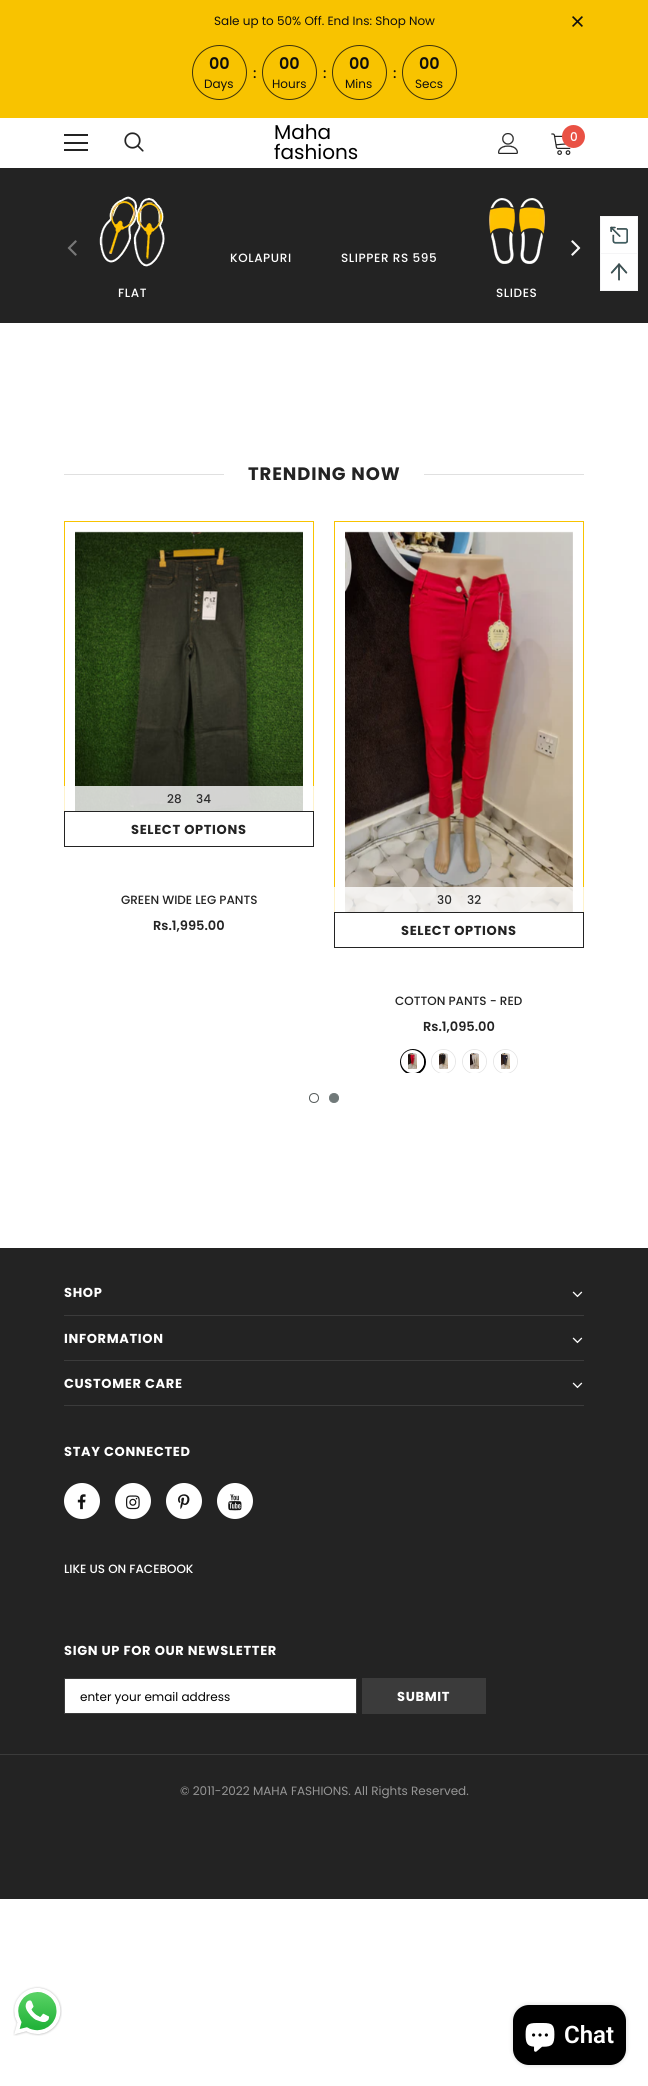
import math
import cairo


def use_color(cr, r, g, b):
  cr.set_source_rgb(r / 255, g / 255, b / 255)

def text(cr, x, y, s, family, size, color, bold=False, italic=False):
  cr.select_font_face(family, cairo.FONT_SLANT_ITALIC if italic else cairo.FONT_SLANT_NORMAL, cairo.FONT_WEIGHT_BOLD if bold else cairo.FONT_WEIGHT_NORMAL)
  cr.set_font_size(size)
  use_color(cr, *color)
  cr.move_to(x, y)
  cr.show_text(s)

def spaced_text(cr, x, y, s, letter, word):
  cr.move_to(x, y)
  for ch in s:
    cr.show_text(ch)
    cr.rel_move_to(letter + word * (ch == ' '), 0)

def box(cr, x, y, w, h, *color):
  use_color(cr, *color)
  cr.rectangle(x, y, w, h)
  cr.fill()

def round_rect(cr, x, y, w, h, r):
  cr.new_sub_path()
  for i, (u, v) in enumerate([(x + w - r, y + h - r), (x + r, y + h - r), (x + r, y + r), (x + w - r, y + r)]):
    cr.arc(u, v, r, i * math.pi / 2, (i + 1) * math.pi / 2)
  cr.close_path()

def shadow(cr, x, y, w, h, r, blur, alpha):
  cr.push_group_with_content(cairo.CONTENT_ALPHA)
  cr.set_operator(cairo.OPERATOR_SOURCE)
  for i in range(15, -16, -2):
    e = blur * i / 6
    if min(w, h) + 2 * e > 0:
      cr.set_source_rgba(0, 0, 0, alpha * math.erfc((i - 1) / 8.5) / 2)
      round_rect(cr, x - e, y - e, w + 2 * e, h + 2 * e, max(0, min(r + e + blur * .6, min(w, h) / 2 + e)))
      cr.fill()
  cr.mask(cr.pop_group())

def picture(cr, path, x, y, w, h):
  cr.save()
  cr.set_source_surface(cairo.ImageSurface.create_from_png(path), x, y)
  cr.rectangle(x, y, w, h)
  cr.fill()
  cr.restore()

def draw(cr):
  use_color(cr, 255, 255, 255)
  cr.paint()
  box(cr, 0, 0, 648, 118, 248, 195, 0)
  picture(cr, "img_01.png", 572, 16, 11, 11)
  cr.arc(219.5, 72.5, 27, 0, 2 * math.pi)
  use_color(cr, 62, 51, 12)
  cr.set_line_width(1)
  cr.stroke()
  cr.arc(289.5, 72.5, 27, 0, 2 * math.pi)
  cr.stroke()
  cr.arc(359.5, 72.5, 27, 0, 2 * math.pi)
  cr.stroke()
  cr.arc(429.5, 72.5, 27, 0, 2 * math.pi)
  cr.stroke()
  box(cr, 64, 134, 24, 2, 35, 35, 35)
  box(cr, 64, 142, 24, 2, 35, 35, 35)
  box(cr, 64, 149, 24, 2, 35, 35, 35)
  picture(cr, "img_02.png", 124, 132, 20, 20)
  picture(cr, "img_03.png", 498, 133, 20, 21)
  picture(cr, "img_04.png", 551, 133, 20, 22)
  use_color(cr, 233, 81, 68)
  cr.arc(573.5, 136.5, 11.5, 0, 2 * math.pi)
  cr.fill()
  box(cr, 0, 168, 648, 155, 35, 35, 35)
  picture(cr, "img_05.png", 67, 240, 10, 16)
  picture(cr, "img_06.png", 571, 240, 10, 16)
  picture(cr, "img_07.png", 99, 196, 66, 71)
  picture(cr, "img_08.png", 489, 198, 56, 66)
  box(cr, 64, 474, 520, 1, 224, 224, 224)
  box(cr, 224, 474, 200, 1, 255, 255, 255)
  cr.rectangle(64.5, 521.5, 249, 324)
  use_color(cr, 248, 195, 0)
  cr.stroke()
  picture(cr, "img_09.png", 75, 531, 228, 280)
  cr.set_source_rgba(1, 1, 1, 0.8)
  cr.rectangle(64, 786, 250, 25)
  cr.fill()
  box(cr, 65, 845, 248, 1, 255, 255, 255)
  cr.rectangle(64.5, 811.5, 249, 35)
  use_color(cr, 35, 35, 35)
  cr.stroke()
  cr.rectangle(334.5, 521.5, 249, 425)
  use_color(cr, 248, 195, 0)
  cr.stroke()
  picture(cr, "img_10.png", 345, 531, 228, 381)
  cr.set_source_rgba(1, 1, 1, 0.8)
  cr.rectangle(334, 887, 250, 25)
  cr.fill()
  box(cr, 335, 946, 248, 1, 255, 255, 255)
  cr.rectangle(334.5, 912.5, 249, 35)
  use_color(cr, 35, 35, 35)
  cr.stroke()
  cr.save()
  cr.rectangle(54, 511, 540, 562)
  cr.clip()
  cr.arc(413, 1062, 12, 0, 2 * math.pi)
  use_color(cr, 0, 0, 0)
  cr.set_line_width(2)
  cr.stroke()
  cr.restore()
  cr.arc(412.5, 1061.5, 10, 0, 2 * math.pi)
  use_color(cr, 255, 255, 255)
  cr.set_line_width(3)
  cr.stroke()
  picture(cr, "img_11.png", 408, 1053, 9, 16)
  cr.save()
  cr.rectangle(54, 511, 540, 562)
  cr.clip()
  cr.arc(443.5, 1061.5, 12, 0, 2 * math.pi)
  use_color(cr, 230, 230, 230)
  cr.set_line_width(1)
  cr.stroke()
  cr.restore()
  cr.arc(443.5, 1061.5, 10, 0, 2 * math.pi)
  cr.stroke()
  picture(cr, "img_12.png", 439, 1053, 9, 16)
  cr.save()
  cr.rectangle(54, 511, 540, 562)
  cr.clip()
  cr.arc(474.5, 1061.5, 12, 0, 2 * math.pi)
  use_color(cr, 230, 230, 230)
  cr.set_line_width(1)
  cr.stroke()
  cr.restore()
  cr.arc(474.5, 1061.5, 10, 0, 2 * math.pi)
  cr.stroke()
  picture(cr, "img_13.png", 470, 1053, 9, 16)
  cr.save()
  cr.rectangle(54, 511, 540, 562)
  cr.clip()
  cr.arc(505.5, 1061.5, 12, 0, 2 * math.pi)
  use_color(cr, 230, 230, 230)
  cr.set_line_width(1)
  cr.stroke()
  cr.restore()
  cr.arc(505.5, 1061.5, 10, 0, 2 * math.pi)
  cr.stroke()
  picture(cr, "img_14.png", 501, 1053, 9, 16)
  cr.arc(314, 1098, 4.5, 0, 2 * math.pi)
  use_color(cr, 80, 86, 86)
  cr.set_line_width(1)
  cr.stroke()
  use_color(cr, 112, 121, 121)
  cr.arc(334, 1098, 4.5, 0, 2 * math.pi)
  cr.fill_preserve()
  cr.stroke()
  box(cr, 0, 1248, 648, 651, 35, 35, 35)
  box(cr, 64, 1315, 520, 1, 59, 59, 59)
  picture(cr, "img_15.png", 572, 1291, 11, 7)
  box(cr, 64, 1360, 520, 1, 59, 59, 59)
  picture(cr, "img_15.png", 572, 1337, 11, 7)
  box(cr, 64, 1405, 520, 1, 59, 59, 59)
  picture(cr, "img_15.png", 572, 1382, 11, 7)
  use_color(cr, 255, 255, 255)
  cr.arc(82, 1501, 18, 0, 2 * math.pi)
  cr.fill()
  picture(cr, "img_16.png", 77, 1494, 9, 16)
  cr.arc(133, 1501, 18, 0, 2 * math.pi)
  cr.fill()
  picture(cr, "img_17.png", 126, 1495, 14, 15)
  cr.arc(184, 1501, 18, 0, 2 * math.pi)
  cr.fill()
  picture(cr, "img_18.png", 178, 1494, 12, 16)
  cr.arc(235, 1501, 18, 0, 2 * math.pi)
  cr.fill()
  picture(cr, "img_19.png", 228, 1494, 14, 17)
  cr.rectangle(64.5, 1678.5, 292, 35)
  cr.fill_preserve()
  use_color(cr, 59, 59, 59)
  cr.stroke()
  box(cr, 362, 1678, 124, 36, 59, 59, 59)
  box(cr, 0, 1754, 648, 1, 59, 59, 59)
  box(cr, 601, 217, 36, 73, 255, 255, 255)
  box(cr, 600, 216, 38, 1, 245, 245, 246)
  box(cr, 637, 216, 1, 37, 245, 245, 246)
  box(cr, 600, 216, 1, 37, 245, 245, 246)
  picture(cr, "img_20.png", 610, 226, 18, 18)
  cr.rectangle(600.5, 253.5, 37, 37)
  cr.stroke()
  picture(cr, "img_21.png", 610, 263, 18, 18)
  picture(cr, "img_22.png", 13, 1986, 49, 50)
  use_color(cr, 0, 0, 0)
  shadow(cr, 513, 2005, 113, 60, 16, 2.5, 0.15)
  use_color(cr, 0, 0, 0)
  round_rect(cr, 513, 2005, 113, 60, 16)
  cr.fill()
  picture(cr, "img_23.png", 525, 2023, 30, 29)
  text(cr, 214, 25, "Sale up to 50% Off. End Ins: Shop Now", "Poppins", 12, (15, 15, 15))
  text(cr, 209, 69, "00", "Poppins SemiBold", 16, (15, 15, 15))
  text(cr, 204, 88, "Days", "Poppins", 12, (15, 15, 15))
  text(cr, 279, 69, "00", "Poppins SemiBold", 16, (15, 15, 15))
  text(cr, 253, 78, ":", "Poppins Medium", 14, (15, 15, 15))
  text(cr, 272, 88, "Hours", "Poppins", 12, (15, 15, 15))
  text(cr, 349, 69, "00", "Poppins SemiBold", 16, (15, 15, 15))
  text(cr, 323, 78, ":", "Poppins Medium", 14, (15, 15, 15))
  text(cr, 345, 88, "Mins", "Poppins", 12, (15, 15, 15))
  text(cr, 419, 69, "00", "Poppins SemiBold", 16, (15, 15, 15))
  text(cr, 393, 78, ":", "Poppins Medium", 14, (15, 15, 15))
  text(cr, 415, 88, "Secs", "Poppins", 12, (15, 15, 15))
  text(cr, 274, 139, "Maha", "Poppins", 20, (0, 0, 0))
  text(cr, 274, 159, "fashions", "Poppins", 20, (0, 0, 0))
  text(cr, 570, 141, "0", "Poppins Medium", 12, (255, 255, 255))
  spaced_text(cr, 230, 262, "KOLAPURI", 0.6, 0)
  spaced_text(cr, 341, 262, "SLIPPER RS 595", 0.6, 0)
  spaced_text(cr, 118, 297, "FLAT", 0.6, 0)
  spaced_text(cr, 496, 297, "SLIDES", 0.6, 0)
  cr.select_font_face("Poppins", cairo.FONT_SLANT_NORMAL, cairo.FONT_WEIGHT_BOLD)
  cr.set_font_size(18)
  use_color(cr, 35, 35, 35)
  spaced_text(cr, 248, 480, "TRENDING NOW", 0.9, 0)
  text(cr, 167, 803, "28", "Poppins Medium", 12, (45, 45, 45))
  text(cr, 196, 803, "34", "Poppins Medium", 12, (45, 45, 45))
  cr.select_font_face("Poppins", cairo.FONT_SLANT_NORMAL, cairo.FONT_WEIGHT_BOLD)
  cr.set_font_size(13)
  use_color(cr, 35, 35, 35)
  spaced_text(cr, 131, 834, "SELECT OPTIONS", 0.65, 0)
  text(cr, 121, 904, "GREEN WIDE LEG PANTS", "Poppins Medium", 12, (35, 35, 35))
  text(cr, 153, 930, "Rs.1,995.00", "Poppins SemiBold", 13, (35, 35, 35))
  text(cr, 437, 904, "30", "Poppins Medium", 12, (45, 45, 45))
  text(cr, 467, 904, "32", "Poppins Medium", 12, (45, 45, 45))
  cr.select_font_face("Poppins", cairo.FONT_SLANT_NORMAL, cairo.FONT_WEIGHT_BOLD)
  cr.set_font_size(13)
  use_color(cr, 35, 35, 35)
  spaced_text(cr, 401, 935, "SELECT OPTIONS", 0.65, 0)
  text(cr, 395, 1005, "COTTON PANTS - RED", "Poppins Medium", 12, (35, 35, 35))
  text(cr, 423, 1031, "Rs.1,095.00", "Poppins SemiBold", 13, (35, 35, 35))
  cr.select_font_face("Poppins", cairo.FONT_SLANT_NORMAL, cairo.FONT_WEIGHT_BOLD)
  use_color(cr, 255, 255, 255)
  spaced_text(cr, 64, 1297, "SHOP", 0.65, 0)
  spaced_text(cr, 64, 1343, "INFORMATION", 0.65, 0)
  spaced_text(cr, 64, 1388, "CUSTOMER CARE", 0.65, 0)
  spaced_text(cr, 64, 1456, "STAY CONNECTED", 0.65, 0)
  text(cr, 64, 1573, "LIKE US ON FACEBOOK", "Poppins Medium", 12, (255, 255, 255))
  cr.select_font_face("Poppins", cairo.FONT_SLANT_NORMAL, cairo.FONT_WEIGHT_BOLD)
  cr.set_font_size(13)
  spaced_text(cr, 64, 1655, "SIGN UP FOR OUR NEWSLETTER", 0.65, 0)
  text(cr, 80, 1701, "enter your email address", "Poppins", 12, (0, 0, 0))
  cr.select_font_face("Poppins", cairo.FONT_SLANT_NORMAL, cairo.FONT_WEIGHT_BOLD)
  cr.set_font_size(13)
  use_color(cr, 255, 255, 255)
  spaced_text(cr, 397, 1701, "SUBMIT", 0.65, 0)
  text(cr, 180, 1795, "© 2011-2022 MAHA FASHIONS. All Rights Reserved.", "Poppins", 12, (150, 150, 150))
  text(cr, 564, 2043, "Chat", "Roboto SemiBold", 24, (255, 255, 255))


surface = cairo.ImageSurface(cairo.FORMAT_RGB24, 648, 2086)
cr = cairo.Context(surface)
options = cairo.FontOptions()
options.set_hint_metrics(cairo.HINT_METRICS_OFF)
options.set_hint_style(cairo.HINT_STYLE_NONE)
cr.set_font_options(options)
cr.set_miter_limit(4)
draw(cr)
surface.write_to_png("out.png")
